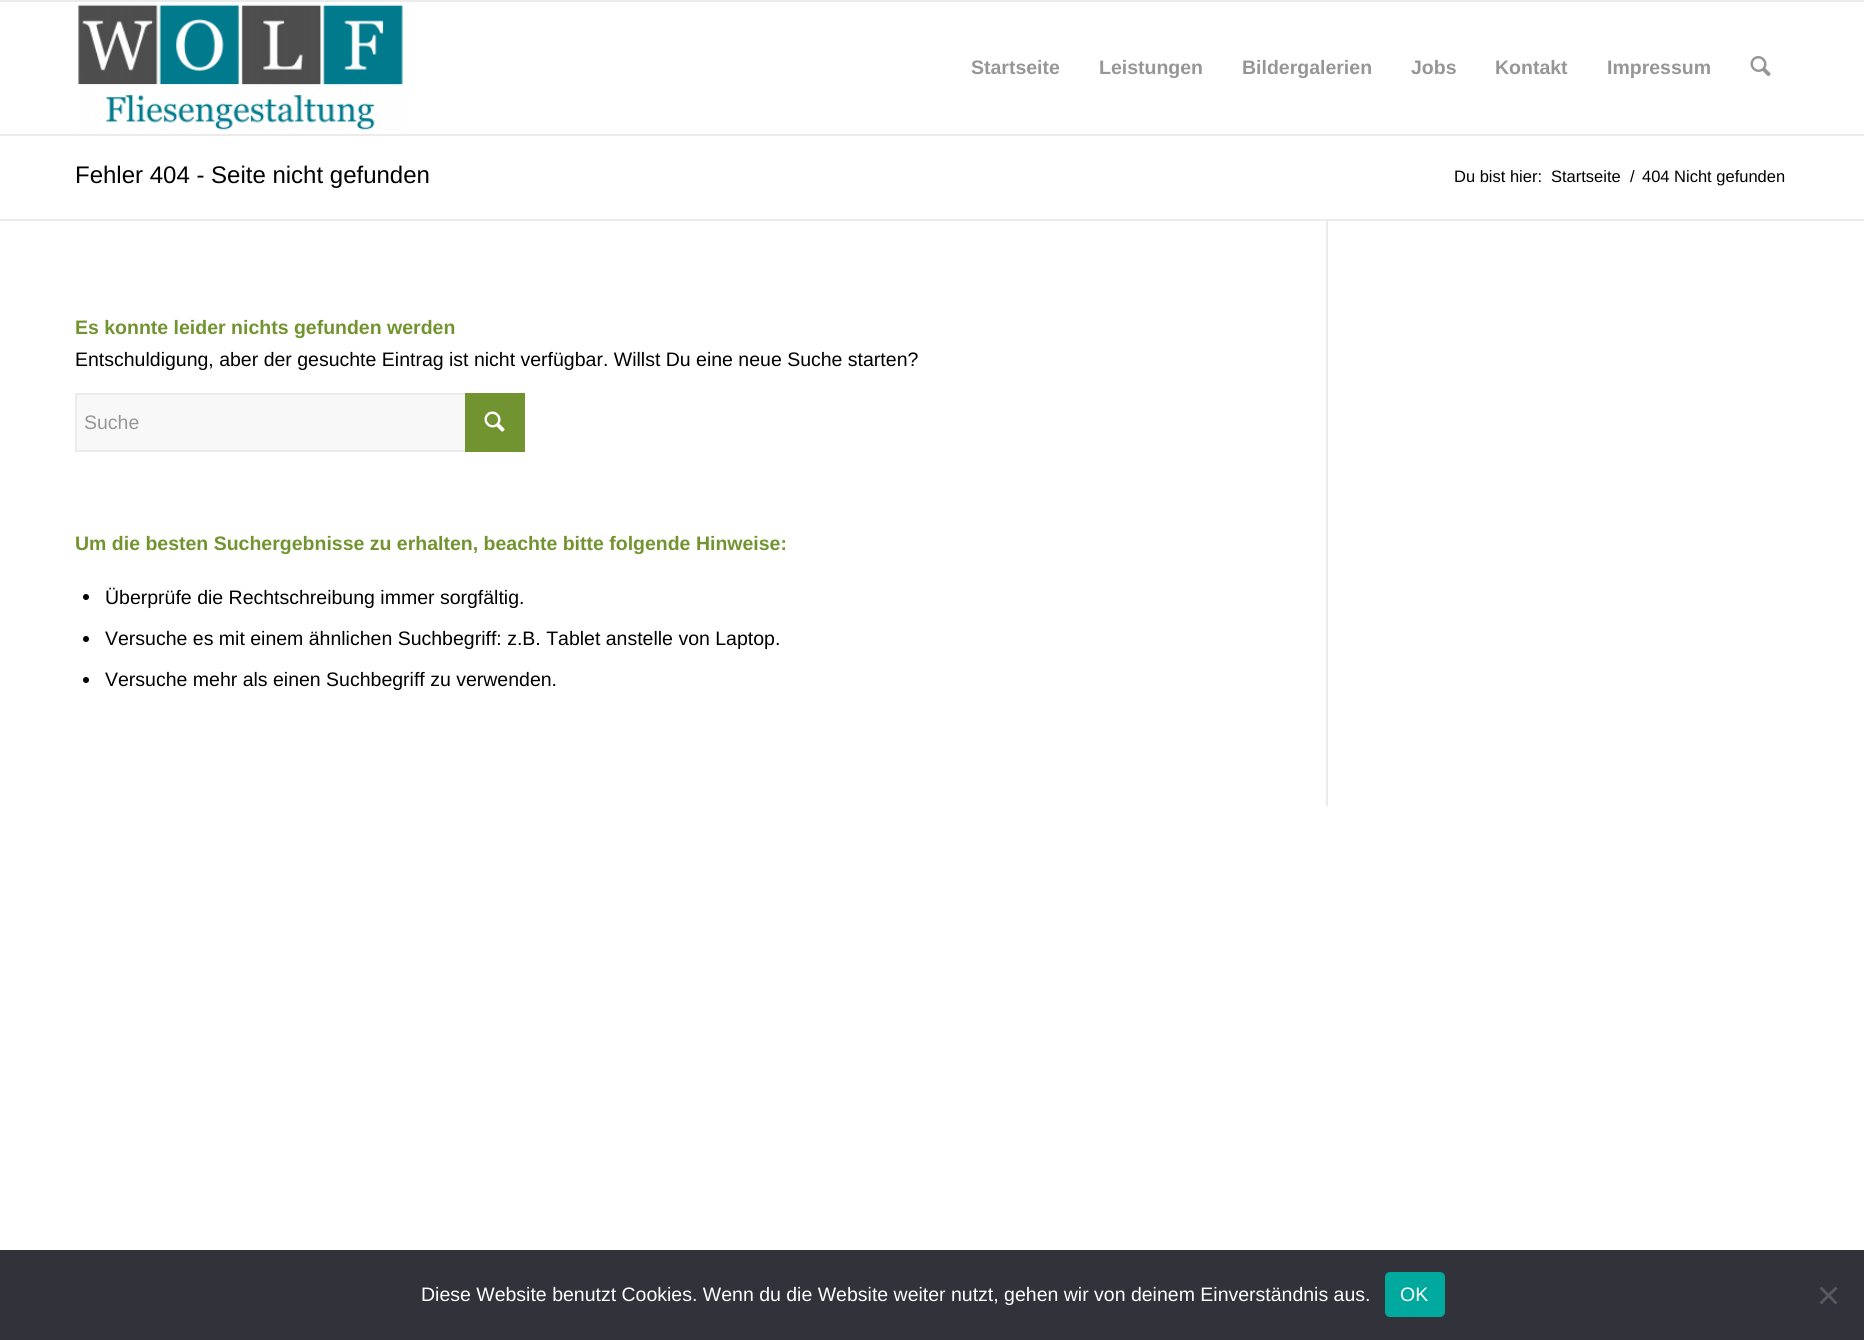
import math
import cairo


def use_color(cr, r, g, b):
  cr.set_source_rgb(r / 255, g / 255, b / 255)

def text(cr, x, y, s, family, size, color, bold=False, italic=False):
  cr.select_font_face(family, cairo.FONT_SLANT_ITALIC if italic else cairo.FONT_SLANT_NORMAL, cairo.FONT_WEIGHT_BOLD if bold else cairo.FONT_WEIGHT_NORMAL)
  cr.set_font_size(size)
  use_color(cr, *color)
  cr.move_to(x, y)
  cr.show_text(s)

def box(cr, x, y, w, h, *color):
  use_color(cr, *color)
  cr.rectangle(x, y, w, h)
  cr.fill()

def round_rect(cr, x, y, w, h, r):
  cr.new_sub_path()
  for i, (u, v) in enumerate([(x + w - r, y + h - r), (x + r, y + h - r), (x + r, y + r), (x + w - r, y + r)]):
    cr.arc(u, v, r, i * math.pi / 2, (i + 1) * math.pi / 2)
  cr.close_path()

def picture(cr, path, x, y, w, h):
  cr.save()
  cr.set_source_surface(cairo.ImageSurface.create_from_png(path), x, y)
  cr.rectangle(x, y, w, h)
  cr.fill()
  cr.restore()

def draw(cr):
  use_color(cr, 255, 255, 255)
  cr.paint()
  box(cr, 0, 0, 1864, 2, 235, 235, 235)
  box(cr, 0, 134, 1864, 2, 235, 235, 235)
  picture(cr, "img_01.png", 78, 4, 325, 126)
  picture(cr, "img_02.png", 1750, 56, 21, 21)
  box(cr, 0, 219, 1864, 2, 235, 235, 235)
  box(cr, 1326, 221, 2, 585, 235, 235, 235)
  box(cr, 77, 395, 388, 55, 248, 248, 248)
  cr.rectangle(76, 394, 448, 57)
  use_color(cr, 235, 235, 235)
  cr.stroke()
  box(cr, 465, 393, 60, 59, 113, 148, 48)
  picture(cr, "img_03.png", 484, 411, 21, 21)
  use_color(cr, 0, 0, 0)
  cr.arc(86, 597, 3, 0, 2 * math.pi)
  cr.fill()
  cr.arc(86, 639, 3, 0, 2 * math.pi)
  cr.fill()
  cr.arc(86, 680, 3, 0, 2 * math.pi)
  cr.fill()
  box(cr, 0, 1250, 1864, 90, 50, 50, 58)
  use_color(cr, 0, 169, 157)
  round_rect(cr, 1385, 1272, 60, 45, 5)
  cr.fill()
  use_color(cr, 89, 89, 93)
  cr.new_path()
  cr.move_to(1835.5, 1286.5)
  cr.line_to(1837.5, 1288.5)
  cr.line_to(1821.5, 1304.5)
  cr.line_to(1819.5, 1302.5)
  cr.close_path()
  cr.fill()
  cr.new_path()
  cr.move_to(1819.5, 1288.5)
  cr.line_to(1821.5, 1286.5)
  cr.line_to(1837.5, 1302.5)
  cr.line_to(1835.5, 1304.5)
  cr.close_path()
  cr.fill()
  text(cr, 971, 74, "Startseite", "Liberation Sans", 19.5, (150, 150, 150), bold=True)
  text(cr, 1099, 74, "Leistungen", "Liberation Sans", 19.5, (150, 150, 150), bold=True)
  text(cr, 1242, 74, "Bildergalerien", "Liberation Sans", 19.5, (150, 150, 150), bold=True)
  text(cr, 1411, 74, "Jobs", "Liberation Sans", 19.5, (150, 150, 150), bold=True)
  text(cr, 1495, 74, "Kontakt", "Liberation Sans", 19.5, (150, 150, 150), bold=True)
  text(cr, 1607, 74, "Impressum", "Liberation Sans", 19.5, (150, 150, 150), bold=True)
  text(cr, 75, 183, "Fehler 404 - Seite nicht gefunden", "Liberation Sans", 24, (0, 0, 0))
  text(cr, 1454, 182, "Du bist hier:", "Liberation Sans", 16.5, (0, 0, 0))
  text(cr, 1551, 182, "Startseite", "Liberation Sans", 16.5, (0, 0, 0))
  text(cr, 1630, 182, "/", "Liberation Sans", 16.5, (0, 0, 0))
  text(cr, 1642, 182, "404 Nicht gefunden", "Liberation Sans", 16.5, (0, 0, 0))
  text(cr, 75, 334, "Es konnte leider nichts gefunden werden", "Liberation Sans", 19.5, (113, 148, 48), bold=True)
  text(cr, 75, 366, "Entschuldigung, aber der gesuchte Eintrag ist nicht verfügbar. Willst Du eine neue Suche starten?", "Liberation Sans", 19.5, (0, 0, 0))
  text(cr, 84, 429, "Suche", "Liberation Sans", 19.5, (150, 150, 150))
  text(cr, 75, 550, "Um die besten Suchergebnisse zu erhalten, beachte bitte folgende Hinweise:", "Liberation Sans", 19.5, (113, 148, 48), bold=True)
  text(cr, 105, 604, "Überprüfe die Rechtschreibung immer sorgfältig.", "Liberation Sans", 19.5, (0, 0, 0))
  text(cr, 105, 645, "Versuche es mit einem ähnlichen Suchbegriff: z.B. Tablet anstelle von Laptop.", "Liberation Sans", 19.5, (0, 0, 0))
  text(cr, 105, 686, "Versuche mehr als einen Suchbegriff zu verwenden.", "Liberation Sans", 19.5, (0, 0, 0))
  text(cr, 421, 1301, "Diese Website benutzt Cookies. Wenn du die Website weiter nutzt, gehen wir von deinem Einverständnis aus.", "Liberation Sans", 19.5, (255, 255, 255))
  text(cr, 1400, 1301, "OK", "Liberation Sans", 19.5, (255, 255, 255))


surface = cairo.ImageSurface(cairo.FORMAT_RGB24, 1864, 1340)
cr = cairo.Context(surface)
options = cairo.FontOptions()
options.set_hint_metrics(cairo.HINT_METRICS_OFF)
options.set_hint_style(cairo.HINT_STYLE_NONE)
cr.set_font_options(options)
cr.set_miter_limit(4)
draw(cr)
surface.write_to_png("out.png")
